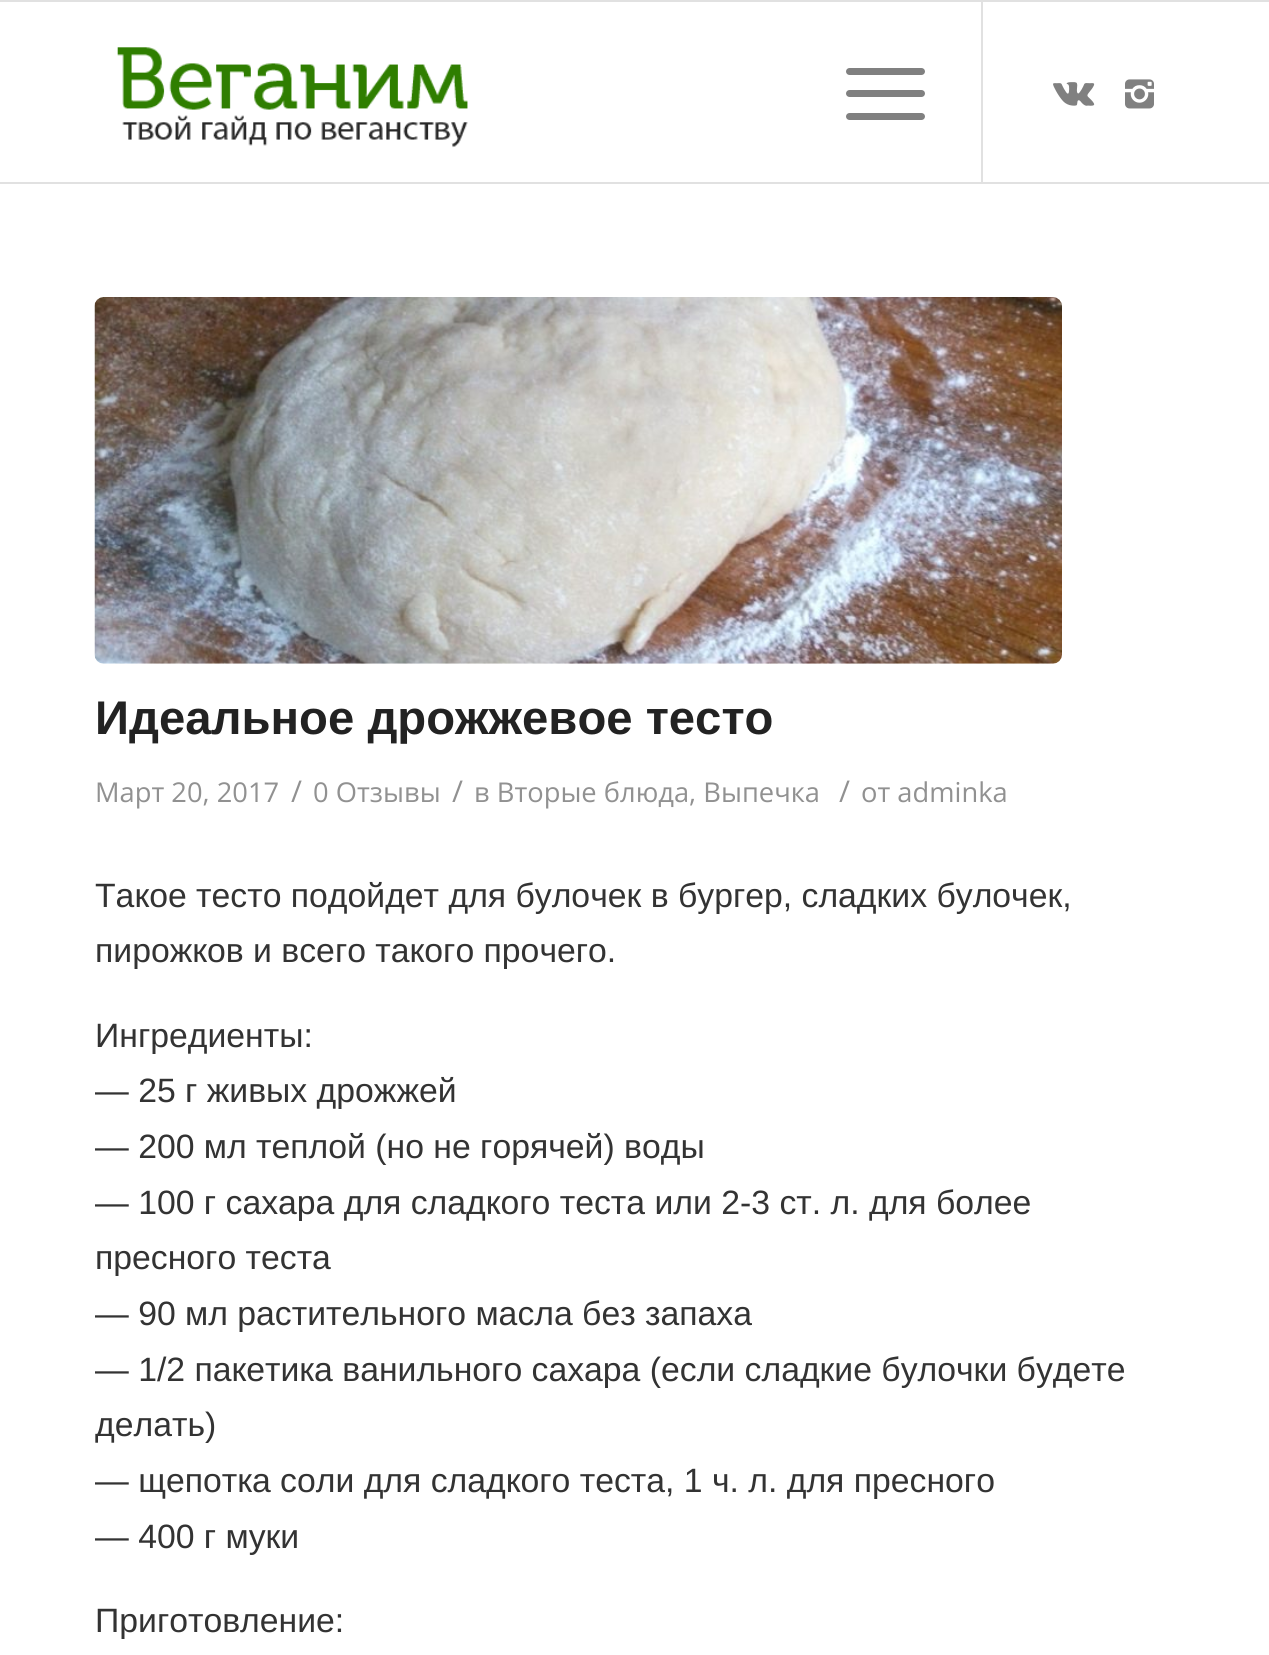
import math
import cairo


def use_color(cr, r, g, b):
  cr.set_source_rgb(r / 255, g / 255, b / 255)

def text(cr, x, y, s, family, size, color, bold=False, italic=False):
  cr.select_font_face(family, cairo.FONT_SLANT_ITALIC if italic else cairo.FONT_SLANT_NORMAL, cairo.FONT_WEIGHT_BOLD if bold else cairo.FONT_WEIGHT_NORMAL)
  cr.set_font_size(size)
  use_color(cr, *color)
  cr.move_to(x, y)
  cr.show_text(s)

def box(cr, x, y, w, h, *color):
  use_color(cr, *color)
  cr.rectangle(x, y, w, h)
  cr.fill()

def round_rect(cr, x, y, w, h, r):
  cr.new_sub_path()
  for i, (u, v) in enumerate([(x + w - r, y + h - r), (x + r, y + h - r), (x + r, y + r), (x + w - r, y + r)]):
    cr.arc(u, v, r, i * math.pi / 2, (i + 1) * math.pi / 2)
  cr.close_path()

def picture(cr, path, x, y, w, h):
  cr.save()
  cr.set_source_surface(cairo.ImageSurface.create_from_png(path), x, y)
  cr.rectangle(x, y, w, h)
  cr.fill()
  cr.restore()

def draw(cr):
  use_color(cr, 255, 255, 255)
  cr.paint()
  box(cr, 0, 0, 1269, 2, 225, 225, 225)
  box(cr, 0, 182, 1269, 2, 225, 225, 225)
  picture(cr, "img_01.png", 117, 47, 351, 101)
  box(cr, 981, 2, 2, 180, 225, 225, 225)
  use_color(cr, 128, 128, 128)
  round_rect(cr, 846, 90, 79, 7, 3.5)
  cr.fill()
  round_rect(cr, 846, 68, 79, 7, 3.5)
  cr.fill()
  round_rect(cr, 846, 113, 79, 7, 3.5)
  cr.fill()
  picture(cr, "img_02.png", 1053, 82, 42, 24)
  picture(cr, "img_03.png", 1125, 79, 29, 30)
  picture(cr, "img_04.png", 94, 297, 968, 367)
  text(cr, 95, 734, "Идеальное дрожжевое тесто", "Liberation Sans", 47.25, (34, 34, 34), bold=True)
  text(cr, 95, 802, "Март 20, 2017", "Open Sans", 27.3, (145, 145, 145))
  text(cr, 291, 802, "/", "Open Sans", 30, (145, 145, 145))
  text(cr, 313, 802, "0 Отзывы", "Open Sans", 27.3, (145, 145, 145))
  text(cr, 452, 802, "/", "Open Sans", 30, (145, 145, 145))
  text(cr, 474, 802, "в Вторые блюда, Выпечка", "Open Sans", 27.3, (145, 145, 145))
  text(cr, 839, 802, "/", "Open Sans", 30, (145, 145, 145))
  text(cr, 861, 802, "от adminka", "Open Sans", 27.3, (145, 145, 145))
  text(cr, 95, 907, "Такое тесто подойдет для булочек в бургер, сладких булочек,", "Liberation Sans", 33.75, (51, 51, 51))
  text(cr, 95, 962, "пирожков и всего такого прочего.", "Liberation Sans", 33.75, (51, 51, 51))
  text(cr, 95, 1047, "Ингредиенты:", "Liberation Sans", 33.75, (51, 51, 51))
  text(cr, 95, 1102, "— 25 г живых дрожжей", "Liberation Sans", 33.75, (51, 51, 51))
  text(cr, 95, 1158, "— 200 мл теплой (но не горячей) воды", "Liberation Sans", 33.75, (51, 51, 51))
  text(cr, 95, 1214, "— 100 г сахара для сладкого теста или 2-3 ст. л. для более", "Liberation Sans", 33.75, (51, 51, 51))
  text(cr, 95, 1269, "пресного теста", "Liberation Sans", 33.75, (51, 51, 51))
  text(cr, 95, 1325, "— 90 мл растительного масла без запаха", "Liberation Sans", 33.75, (51, 51, 51))
  text(cr, 95, 1381, "— 1/2 пакетика ванильного сахара (если сладкие булочки будете", "Liberation Sans", 33.75, (51, 51, 51))
  text(cr, 95, 1436, "делать)", "Liberation Sans", 33.75, (51, 51, 51))
  text(cr, 95, 1492, "— щепотка соли для сладкого теста, 1 ч. л. для пресного", "Liberation Sans", 33.75, (51, 51, 51))
  text(cr, 95, 1548, "— 400 г муки", "Liberation Sans", 33.75, (51, 51, 51))
  text(cr, 95, 1632, "Приготовление:", "Liberation Sans", 33.75, (51, 51, 51))


surface = cairo.ImageSurface(cairo.FORMAT_RGB24, 1269, 1655)
cr = cairo.Context(surface)
options = cairo.FontOptions()
options.set_hint_metrics(cairo.HINT_METRICS_OFF)
options.set_hint_style(cairo.HINT_STYLE_NONE)
cr.set_font_options(options)
cr.set_miter_limit(4)
draw(cr)
surface.write_to_png("out.png")
